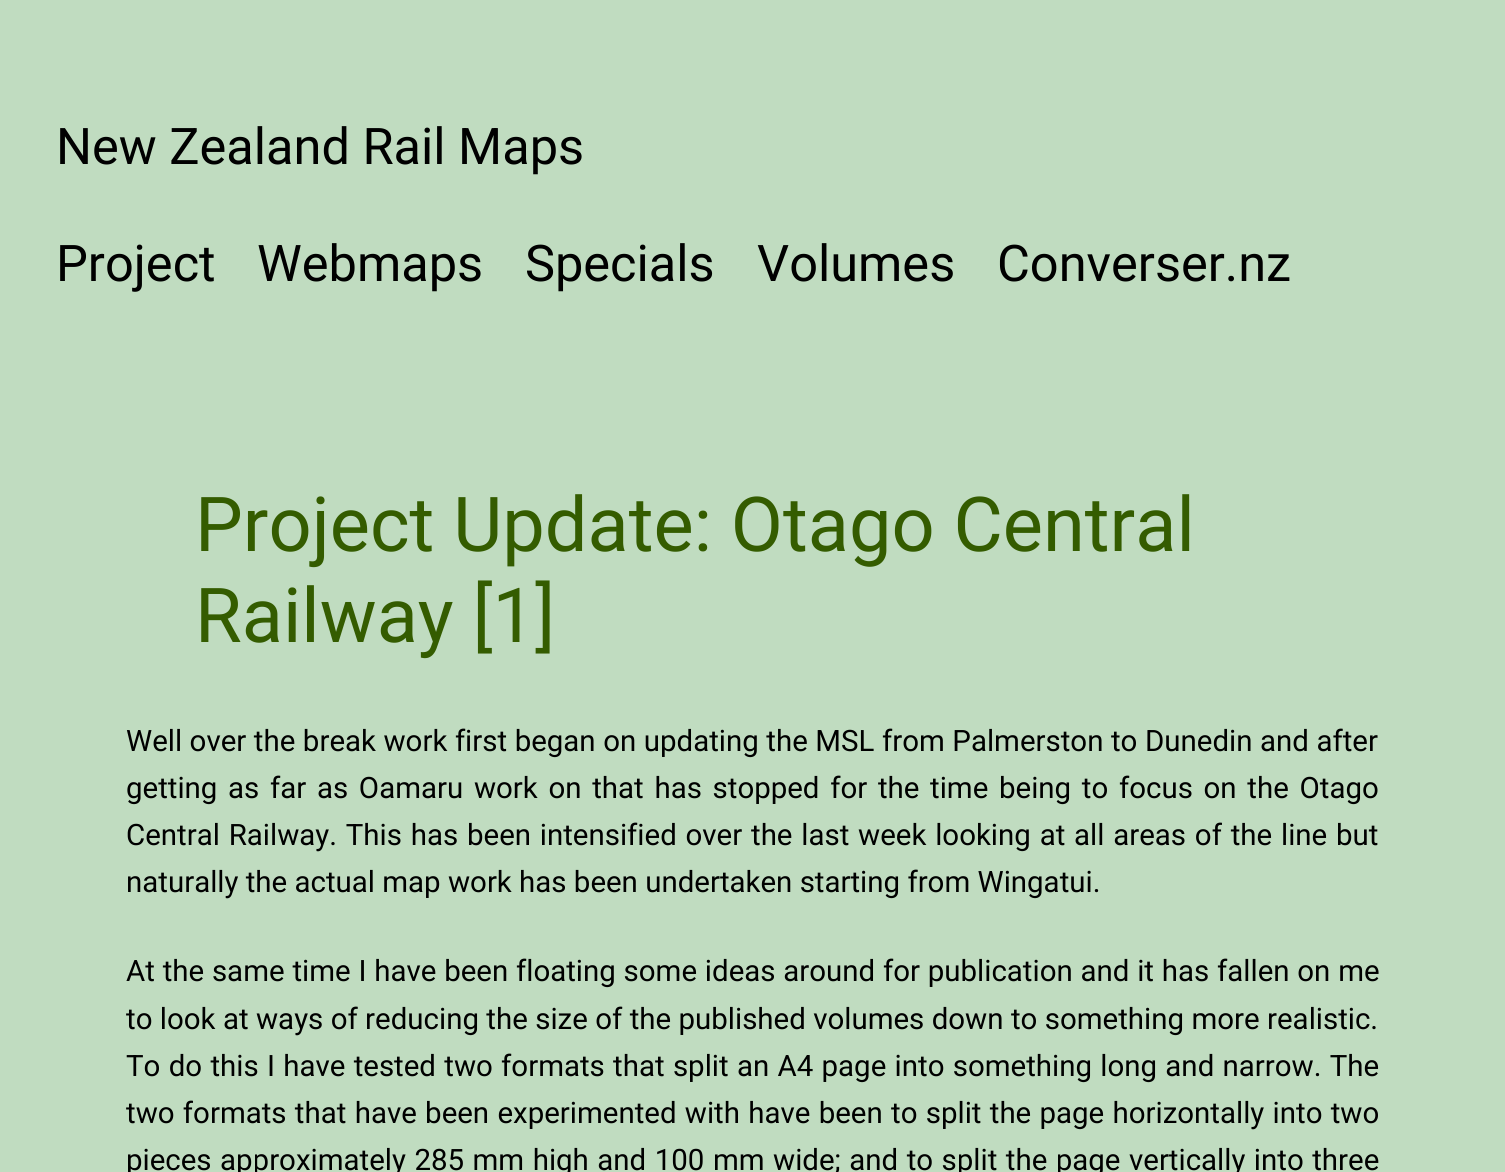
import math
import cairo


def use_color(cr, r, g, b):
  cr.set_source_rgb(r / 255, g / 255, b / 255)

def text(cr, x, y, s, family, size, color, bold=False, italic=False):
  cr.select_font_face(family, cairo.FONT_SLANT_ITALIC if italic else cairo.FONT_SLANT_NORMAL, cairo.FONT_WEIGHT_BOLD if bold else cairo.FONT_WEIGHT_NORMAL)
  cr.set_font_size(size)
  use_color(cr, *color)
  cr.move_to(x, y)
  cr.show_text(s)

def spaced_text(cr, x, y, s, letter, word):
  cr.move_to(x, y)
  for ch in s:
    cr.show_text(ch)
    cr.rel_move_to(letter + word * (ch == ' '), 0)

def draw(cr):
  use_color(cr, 192, 220, 192)
  cr.paint()
  text(cr, 56, 164, "New Zealand Rail Maps", "Roboto", 50.5, (0, 0, 0))
  text(cr, 56, 281, "Project", "Roboto", 50.5, (0, 0, 0))
  text(cr, 257, 281, "Webmaps", "Roboto", 50.5, (0, 0, 0))
  text(cr, 525, 281, "Specials", "Roboto", 50.5, (0, 0, 0))
  text(cr, 757, 281, "Volumes", "Roboto", 50.5, (0, 0, 0))
  text(cr, 997, 281, "Converser.nz", "Roboto", 50.5, (0, 0, 0))
  text(cr, 195, 551, "Project Update: Otago Central", "Roboto", 75.75, (52, 92, 0))
  text(cr, 195, 642, "Railway [1]", "Roboto", 75.75, (52, 92, 0))
  cr.set_font_size(29.45)
  use_color(cr, 0, 0, 0)
  spaced_text(cr, 126, 751, "Well over the break work first began on updating the MSL from Palmerston to Dunedin and after", 0, 0.25)
  spaced_text(cr, 126, 798, "getting as far as Oamaru work on that has stopped for the time being to focus on the Otago", 0, 3.4)
  spaced_text(cr, 126, 845, "Central Railway. This has been intensified over the last week looking at all areas of the line but", 0, 1.5)
  text(cr, 126, 892, "naturally the actual map work has been undertaken starting from Wingatui.", "Roboto", 29.45, (0, 0, 0))
  spaced_text(cr, 126, 981, "At the same time I have been floating some ideas around for publication and it has fallen on me", 0, 0.5)
  spaced_text(cr, 126, 1029, "to look at ways of reducing the size of the published volumes down to something more realistic.", 0, 0.1)
  spaced_text(cr, 126, 1076, "To do this I have tested two formats that split an A4 page into something long and narrow. The", 0, 1)
  spaced_text(cr, 126, 1123, "two formats that have been experimented with have been to split the page horizontally into two", 0, 1)
  spaced_text(cr, 126, 1170, "pieces approximately 285 mm high and 100 mm wide; and to split the page vertically into three", 0, 1.2)


surface = cairo.ImageSurface(cairo.FORMAT_RGB24, 1505, 1172)
cr = cairo.Context(surface)
options = cairo.FontOptions()
options.set_hint_metrics(cairo.HINT_METRICS_OFF)
options.set_hint_style(cairo.HINT_STYLE_NONE)
cr.set_font_options(options)
cr.set_miter_limit(4)
draw(cr)
surface.write_to_png("out.png")
